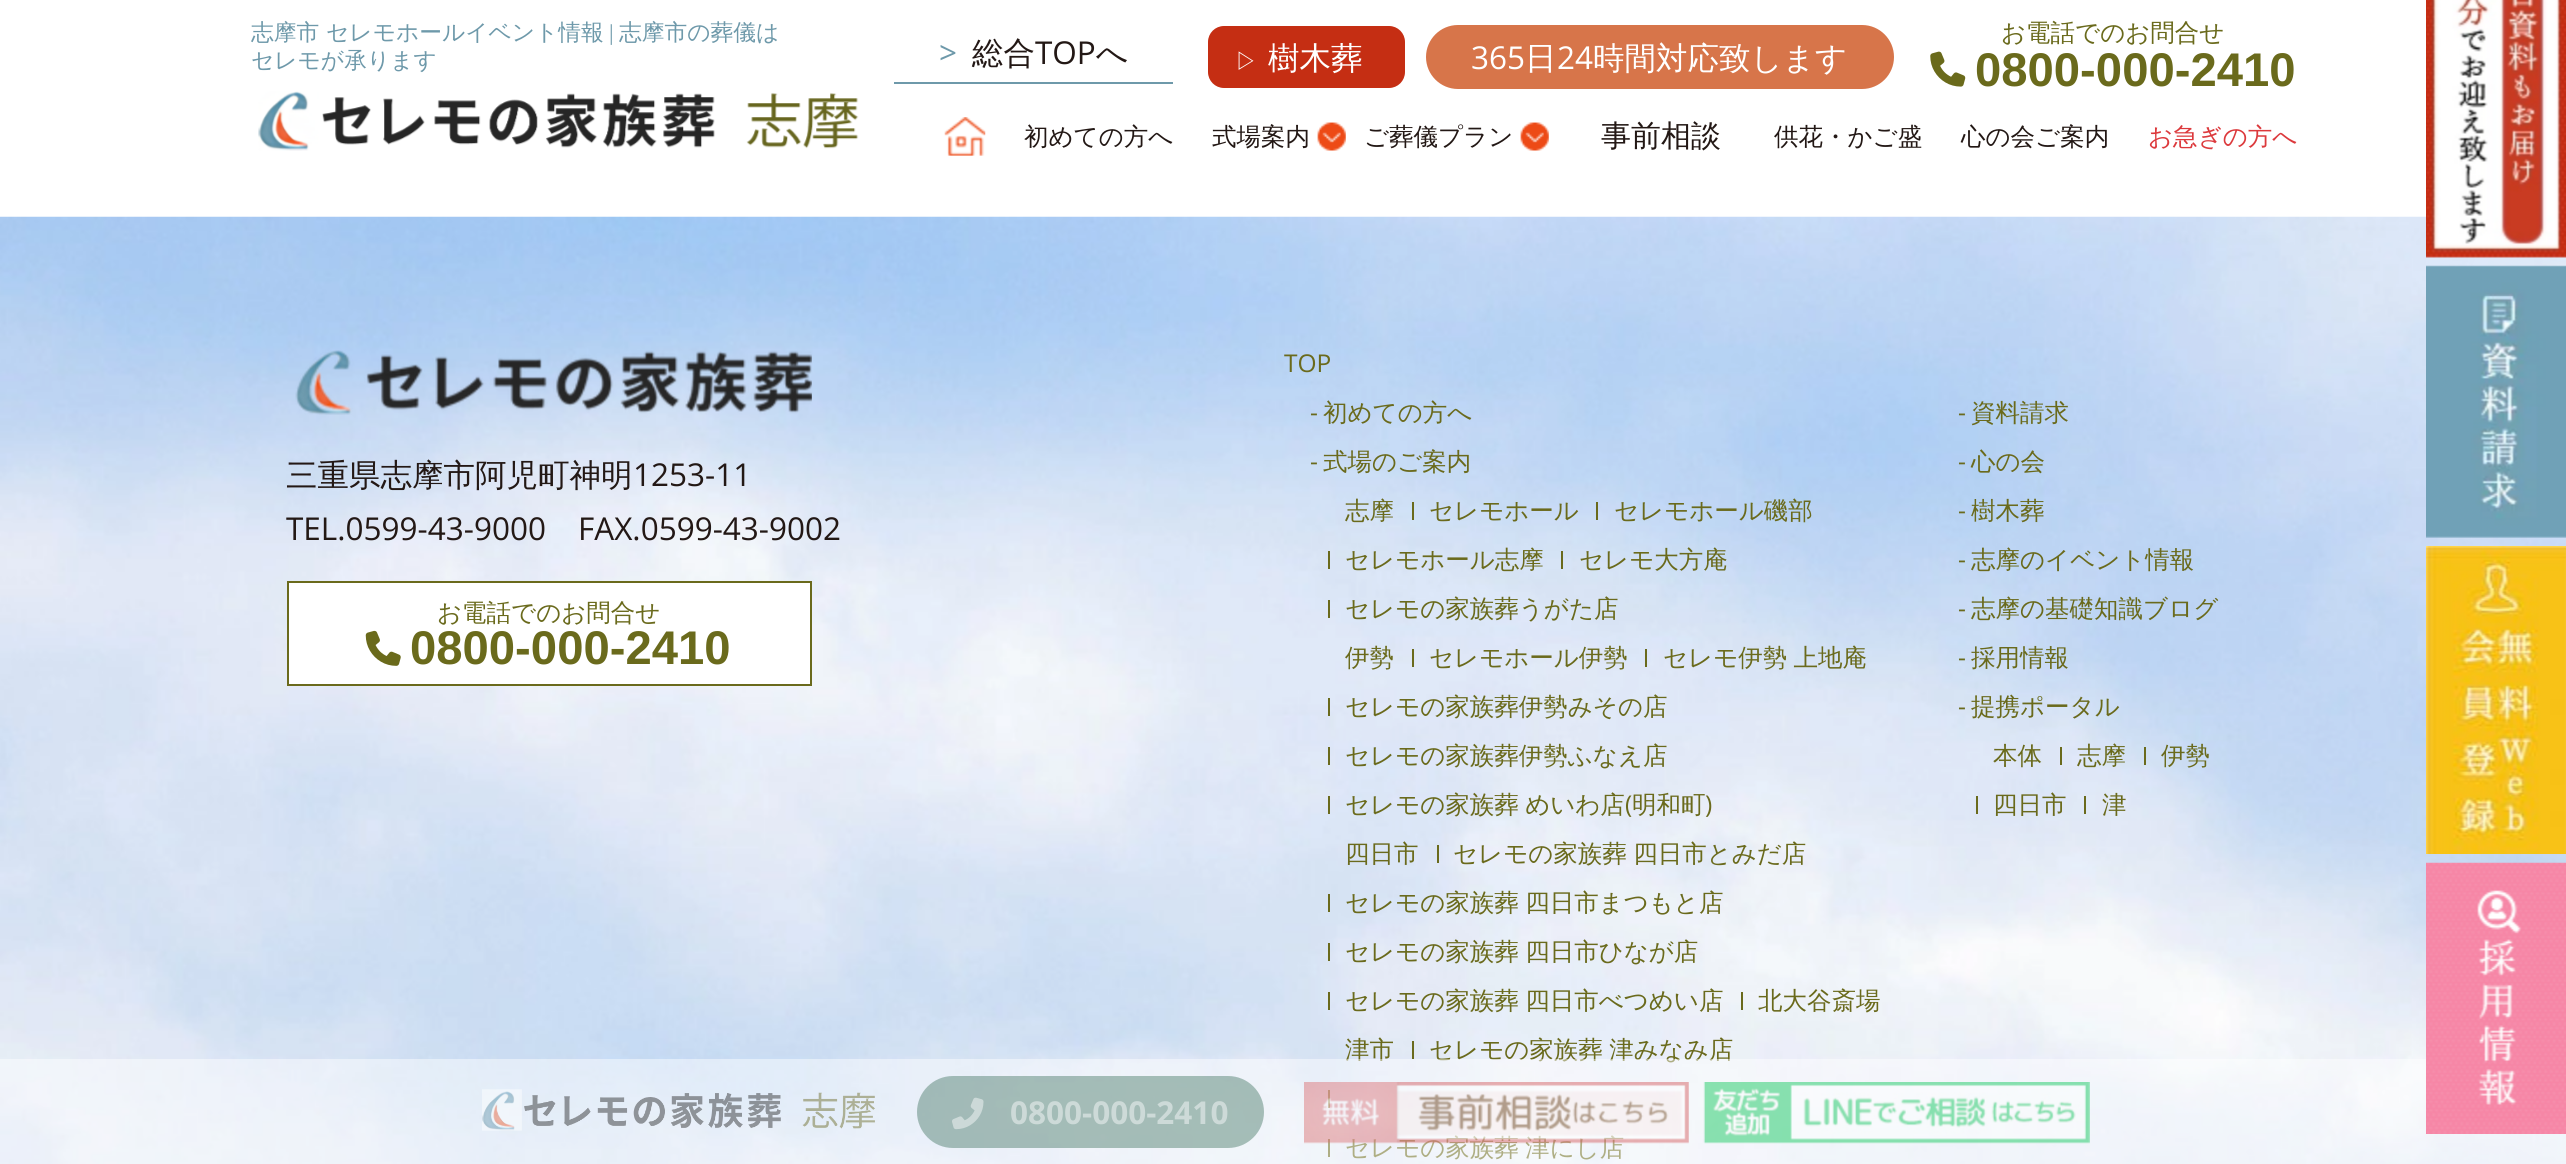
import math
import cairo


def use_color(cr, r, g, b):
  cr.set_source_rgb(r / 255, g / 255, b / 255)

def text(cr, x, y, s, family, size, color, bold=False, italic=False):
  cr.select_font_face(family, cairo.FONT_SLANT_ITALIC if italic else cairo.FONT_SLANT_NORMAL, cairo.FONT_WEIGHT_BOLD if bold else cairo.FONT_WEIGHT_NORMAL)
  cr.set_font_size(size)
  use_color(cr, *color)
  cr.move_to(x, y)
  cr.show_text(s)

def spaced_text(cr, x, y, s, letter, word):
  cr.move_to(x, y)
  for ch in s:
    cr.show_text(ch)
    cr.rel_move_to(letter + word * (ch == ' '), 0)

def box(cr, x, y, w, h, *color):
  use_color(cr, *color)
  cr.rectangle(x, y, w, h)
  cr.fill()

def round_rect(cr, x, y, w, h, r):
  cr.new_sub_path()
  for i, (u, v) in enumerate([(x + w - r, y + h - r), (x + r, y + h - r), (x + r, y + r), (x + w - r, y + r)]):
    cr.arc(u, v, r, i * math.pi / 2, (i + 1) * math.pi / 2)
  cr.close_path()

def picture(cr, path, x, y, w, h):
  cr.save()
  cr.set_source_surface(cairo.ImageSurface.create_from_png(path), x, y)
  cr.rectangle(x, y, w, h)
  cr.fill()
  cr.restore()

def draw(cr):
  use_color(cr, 255, 255, 255)
  cr.paint()
  picture(cr, "img_01.png", 258, 91, 601, 60)
  box(cr, 894, 82, 279, 2, 110, 153, 170)
  use_color(cr, 197, 46, 19)
  round_rect(cr, 1209, 27, 195, 60, 15)
  cr.fill_preserve()
  cr.stroke()
  use_color(cr, 215, 117, 74)
  round_rect(cr, 1427, 26, 466, 62, 31)
  cr.fill_preserve()
  cr.stroke()
  picture(cr, "img_02.png", 1930, 51, 36, 36)
  picture(cr, "img_03.png", 944, 117, 42, 39)
  picture(cr, "img_04.png", 1317, 122, 29, 29)
  picture(cr, "img_05.png", 1520, 122, 29, 29)
  picture(cr, "img_10.png", 0, 216, 2566, 948)
  picture(cr, "img_06.png", 2426, 0, 140, 258)
  picture(cr, "img_07.png", 2426, 265, 140, 273)
  picture(cr, "img_08.png", 2426, 546, 140, 308)
  picture(cr, "img_11.png", 295, 350, 517, 65)
  use_color(cr, 255, 255, 255)
  cr.rectangle(288, 582, 523, 103)
  cr.fill_preserve()
  use_color(cr, 106, 106, 28)
  cr.stroke()
  picture(cr, "img_12.png", 365, 630, 36, 36)
  box(cr, 1412, 502, 2, 18, 106, 106, 28)
  box(cr, 1596, 502, 2, 18, 106, 106, 28)
  box(cr, 1328, 551, 2, 18, 106, 106, 28)
  box(cr, 1561, 551, 2, 18, 106, 106, 28)
  box(cr, 1328, 600, 2, 18, 106, 106, 28)
  box(cr, 1412, 649, 2, 18, 106, 106, 28)
  box(cr, 1645, 649, 2, 18, 106, 106, 28)
  box(cr, 1328, 698, 2, 18, 106, 106, 28)
  box(cr, 1328, 747, 2, 18, 106, 106, 28)
  box(cr, 1328, 796, 2, 18, 106, 106, 28)
  box(cr, 1437, 845, 2, 18, 106, 106, 28)
  box(cr, 1328, 894, 2, 18, 106, 106, 28)
  box(cr, 1328, 943, 2, 18, 106, 106, 28)
  box(cr, 1328, 992, 2, 18, 106, 106, 28)
  box(cr, 1741, 992, 2, 18, 106, 106, 28)
  box(cr, 1412, 1041, 2, 18, 106, 106, 28)
  box(cr, 1328, 1090, 2, 18, 106, 106, 28)
  box(cr, 1328, 1139, 2, 18, 106, 106, 28)
  box(cr, 2060, 747, 2, 18, 106, 106, 28)
  box(cr, 2144, 747, 2, 18, 106, 106, 28)
  box(cr, 1976, 796, 2, 18, 106, 106, 28)
  box(cr, 2084, 796, 2, 18, 106, 106, 28)
  text(cr, 251, 40, "志摩市 セレモホールイベント情報", "WenQuanYi Zen Hei Medium", 22.75, (110, 153, 170))
  text(cr, 609, 40, "|", "Liberation Serif", 22.75, (110, 153, 170))
  text(cr, 619, 40, "志摩市の葬儀は", "WenQuanYi Zen Hei Medium", 22.75, (110, 153, 170))
  text(cr, 251, 68, "セレモが承ります", "WenQuanYi Zen Hei Medium", 22.75, (110, 153, 170))
  text(cr, 939, 64, ">", "Open Sans", 31.5, (110, 153, 170))
  text(cr, 972, 64, "総合", "WenQuanYi Zen Hei Medium", 31.5, (35, 24, 21))
  text(cr, 1035, 64, "TOP", "Open Sans", 31.5, (35, 24, 21))
  text(cr, 1096, 64, "へ", "WenQuanYi Zen Hei Medium", 31.5, (35, 24, 21))
  text(cr, 1235, 69, "▷", "WenQuanYi Zen Hei Medium", 22.75, (255, 255, 255))
  text(cr, 1268, 69, "樹木葬", "WenQuanYi Zen Hei Medium", 31.5, (255, 255, 255))
  text(cr, 1471, 69, "365", "Open Sans", 31.5, (255, 255, 255))
  text(cr, 1525, 69, "日", "WenQuanYi Zen Hei Medium", 31.5, (255, 255, 255))
  text(cr, 1557, 69, "24", "Open Sans", 31.5, (255, 255, 255))
  text(cr, 1593, 69, "時間対応致します", "WenQuanYi Zen Hei Medium", 31.5, (255, 255, 255))
  text(cr, 2001, 41, "お電話でのお問合せ", "WenQuanYi Zen Hei Medium", 24.5, (106, 106, 28))
  text(cr, 1975, 86, "0800-000-2410", "Liberation Sans", 47.25, (106, 106, 28), bold=True)
  text(cr, 1024, 145, "初めての方へ", "WenQuanYi Zen Hei Medium", 24.5, (35, 24, 21))
  text(cr, 1212, 145, "式場案内", "WenQuanYi Zen Hei Medium", 24.5, (35, 24, 21))
  text(cr, 1364, 145, "ご葬儀プラン", "WenQuanYi Zen Hei Medium", 24.5, (35, 24, 21))
  text(cr, 1601, 146, "事前相談", "WenQuanYi Zen Hei Medium", 30, (35, 24, 21))
  text(cr, 1774, 145, "供花・かご盛", "WenQuanYi Zen Hei Medium", 24.5, (35, 24, 21))
  text(cr, 1961, 145, "心の会ご案内", "WenQuanYi Zen Hei Medium", 24.5, (35, 24, 21))
  text(cr, 2148, 145, "お急ぎの方へ", "WenQuanYi Zen Hei Medium", 24.5, (220, 57, 60))
  text(cr, 286, 486, "三重県志摩市阿児町神明", "WenQuanYi Zen Hei Medium", 31.5, (35, 24, 21))
  text(cr, 633, 486, "1253-11", "Open Sans", 31.5, (35, 24, 21))
  text(cr, 286, 540, "TEL.0599-43-9000", "Open Sans", 31.5, (35, 24, 21))
  text(cr, 578, 540, "FAX.0599-43-9002", "Open Sans", 31.5, (35, 24, 21))
  text(cr, 437, 621, "お電話でのお問合せ", "WenQuanYi Zen Hei Medium", 24.5, (106, 106, 28))
  text(cr, 410, 664, "0800-000-2410", "Liberation Sans", 47.25, (106, 106, 28), bold=True)
  text(cr, 1284, 372, "TOP", "Open Sans", 24.5, (106, 106, 28))
  text(cr, 1310, 421, "-", "Open Sans", 24.5, (106, 106, 28))
  text(cr, 1323, 421, "初めての方へ", "WenQuanYi Zen Hei Medium", 24.5, (106, 106, 28))
  text(cr, 1310, 470, "-", "Open Sans", 24.5, (106, 106, 28))
  text(cr, 1323, 470, "式場のご案内", "WenQuanYi Zen Hei Medium", 24.5, (106, 106, 28))
  text(cr, 1345, 519, "志摩", "WenQuanYi Zen Hei Medium", 24.5, (106, 106, 28))
  text(cr, 1429, 519, "セレモホール", "WenQuanYi Zen Hei Medium", 24.5, (106, 106, 28))
  text(cr, 1614, 519, "セレモホール磯部", "WenQuanYi Zen Hei Medium", 24.5, (106, 106, 28))
  text(cr, 1345, 568, "セレモホール志摩", "WenQuanYi Zen Hei Medium", 24.5, (106, 106, 28))
  text(cr, 1579, 568, "セレモ大方庵", "WenQuanYi Zen Hei Medium", 24.5, (106, 106, 28))
  text(cr, 1345, 617, "セレモの家族葬うがた店", "WenQuanYi Zen Hei Medium", 24.5, (106, 106, 28))
  text(cr, 1345, 666, "伊勢", "WenQuanYi Zen Hei Medium", 24.5, (106, 106, 28))
  text(cr, 1429, 666, "セレモホール伊勢", "WenQuanYi Zen Hei Medium", 24.5, (106, 106, 28))
  spaced_text(cr, 1663, 666, "セレモ伊勢 上地庵", 0, -1)
  text(cr, 1345, 715, "セレモの家族葬伊勢みその店", "WenQuanYi Zen Hei Medium", 24.5, (106, 106, 28))
  text(cr, 1345, 764, "セレモの家族葬伊勢ふなえ店", "WenQuanYi Zen Hei Medium", 24.5, (106, 106, 28))
  spaced_text(cr, 1345, 813, "セレモの家族葬 めいわ店", 0, -1)
  text(cr, 1625, 813, "(", "Open Sans", 24.5, (106, 106, 28))
  text(cr, 1632, 813, "明和町", "WenQuanYi Zen Hei Medium", 24.5, (106, 106, 28))
  text(cr, 1705, 813, ")", "Open Sans", 24.5, (106, 106, 28))
  text(cr, 1345, 862, "四日市", "WenQuanYi Zen Hei Medium", 24.5, (106, 106, 28))
  spaced_text(cr, 1453, 862, "セレモの家族葬 四日市とみだ店", 0, -1)
  spaced_text(cr, 1345, 911, "セレモの家族葬 四日市まつもと店", 0, -1)
  spaced_text(cr, 1345, 960, "セレモの家族葬 四日市ひなが店", 0, -1)
  spaced_text(cr, 1345, 1009, "セレモの家族葬 四日市べつめい店", 0, -1)
  text(cr, 1758, 1009, "北大谷斎場", "WenQuanYi Zen Hei Medium", 24.5, (106, 106, 28))
  text(cr, 1345, 1058, "津市", "WenQuanYi Zen Hei Medium", 24.5, (106, 106, 28))
  spaced_text(cr, 1429, 1058, "セレモの家族葬 津みなみ店", 0, -1)
  spaced_text(cr, 1345, 1156, "セレモの家族葬 津にし店", 0, -1)
  text(cr, 1958, 421, "-", "Open Sans", 24.5, (106, 106, 28))
  text(cr, 1971, 421, "資料請求", "WenQuanYi Zen Hei Medium", 24.5, (106, 106, 28))
  text(cr, 1958, 470, "-", "Open Sans", 24.5, (106, 106, 28))
  text(cr, 1971, 470, "心の会", "WenQuanYi Zen Hei Medium", 24.5, (106, 106, 28))
  text(cr, 1958, 519, "-", "Open Sans", 24.5, (106, 106, 28))
  text(cr, 1971, 519, "樹木葬", "WenQuanYi Zen Hei Medium", 24.5, (106, 106, 28))
  text(cr, 1958, 568, "-", "Open Sans", 24.5, (106, 106, 28))
  text(cr, 1971, 568, "志摩のイベント情報", "WenQuanYi Zen Hei Medium", 24.5, (106, 106, 28))
  text(cr, 1958, 617, "-", "Open Sans", 24.5, (106, 106, 28))
  text(cr, 1971, 617, "志摩の基礎知識ブログ", "WenQuanYi Zen Hei Medium", 24.5, (106, 106, 28))
  text(cr, 1958, 666, "-", "Open Sans", 24.5, (106, 106, 28))
  text(cr, 1971, 666, "採用情報", "WenQuanYi Zen Hei Medium", 24.5, (106, 106, 28))
  text(cr, 1958, 715, "-", "Open Sans", 24.5, (106, 106, 28))
  text(cr, 1971, 715, "提携ポータル", "WenQuanYi Zen Hei Medium", 24.5, (106, 106, 28))
  text(cr, 1993, 764, "本体", "WenQuanYi Zen Hei Medium", 24.5, (106, 106, 28))
  text(cr, 2077, 764, "志摩", "WenQuanYi Zen Hei Medium", 24.5, (106, 106, 28))
  text(cr, 2161, 764, "伊勢", "WenQuanYi Zen Hei Medium", 24.5, (106, 106, 28))
  text(cr, 1993, 813, "四日市", "WenQuanYi Zen Hei Medium", 24.5, (106, 106, 28))
  text(cr, 2102, 813, "津", "WenQuanYi Zen Hei Medium", 24.5, (106, 106, 28))
  cr.set_source_rgba(1, 1, 1, 0.46)
  cr.rectangle(0, 1059, 2566, 105)
  cr.fill()
  picture(cr, "img_09.png", 2426, 862, 140, 272)
  picture(cr, "img_13.png", 482, 1089, 393, 42)
  cr.set_source_rgba(0.29, 0.478, 0.408, 0.46)
  round_rect(cr, 917, 1076, 347, 72, 36)
  cr.fill()
  picture(cr, "img_14.png", 952, 1097, 32, 33)
  text(cr, 1010, 1124, "0800-000-2410", "Open Sans", 31.5, (205, 218, 216), bold=True)
  picture(cr, "img_15.png", 1304, 1082, 385, 62)
  picture(cr, "img_16.png", 1703, 1082, 387, 62)


surface = cairo.ImageSurface(cairo.FORMAT_RGB24, 2566, 1164)
cr = cairo.Context(surface)
options = cairo.FontOptions()
options.set_hint_metrics(cairo.HINT_METRICS_OFF)
options.set_hint_style(cairo.HINT_STYLE_NONE)
cr.set_font_options(options)
cr.set_miter_limit(4)
draw(cr)
surface.write_to_png("out.png")
